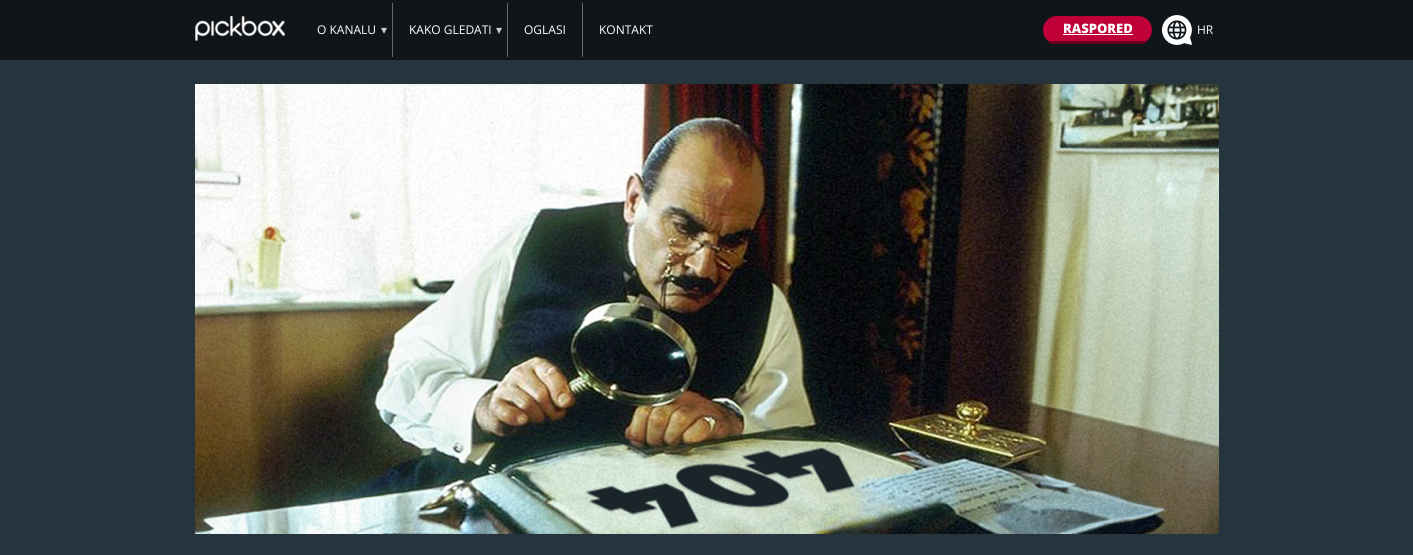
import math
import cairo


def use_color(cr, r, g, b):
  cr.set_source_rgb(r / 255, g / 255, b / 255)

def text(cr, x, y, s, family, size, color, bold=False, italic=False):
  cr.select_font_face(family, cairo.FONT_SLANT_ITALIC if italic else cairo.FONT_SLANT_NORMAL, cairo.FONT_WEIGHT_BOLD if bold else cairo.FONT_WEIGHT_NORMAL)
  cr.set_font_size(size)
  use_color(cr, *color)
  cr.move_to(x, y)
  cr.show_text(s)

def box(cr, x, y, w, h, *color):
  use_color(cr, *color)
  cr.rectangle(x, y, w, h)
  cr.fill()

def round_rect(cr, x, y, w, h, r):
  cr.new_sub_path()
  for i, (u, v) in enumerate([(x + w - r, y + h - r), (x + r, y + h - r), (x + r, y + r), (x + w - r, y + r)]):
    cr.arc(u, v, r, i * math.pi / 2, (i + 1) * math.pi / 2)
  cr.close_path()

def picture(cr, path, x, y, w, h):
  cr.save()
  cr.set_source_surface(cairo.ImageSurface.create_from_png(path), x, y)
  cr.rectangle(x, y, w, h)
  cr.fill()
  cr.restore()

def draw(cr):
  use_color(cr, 38, 53, 61)
  cr.paint()
  box(cr, 0, 0, 1413, 60, 16, 21, 25)
  picture(cr, "img_01.png", 195, 16, 90, 25)
  box(cr, 392, 3, 1, 54, 107, 107, 107)
  box(cr, 507, 3, 1, 54, 107, 107, 107)
  box(cr, 582, 3, 1, 54, 107, 107, 107)
  use_color(cr, 192, 0, 56)
  round_rect(cr, 1043, 16, 109, 28, 14)
  cr.fill()
  box(cr, 1050, 41, 95, 3, 109, 0, 32)
  box(cr, 1063, 34, 70, 1, 255, 255, 255)
  picture(cr, "img_02.png", 1162, 15, 30, 30)
  picture(cr, "img_03.png", 195, 84, 1024, 450)
  text(cr, 317, 34, "O KANALU", "Open Sans", 12, (255, 255, 255))
  text(cr, 381, 34, "▾", "DejaVu Sans", 12, (204, 204, 204))
  text(cr, 409, 34, "KAKO GLEDATI", "Open Sans", 12, (255, 255, 255))
  text(cr, 496, 34, "▾", "DejaVu Sans", 12, (204, 204, 204))
  text(cr, 524, 34, "OGLASI", "Open Sans", 12, (255, 255, 255))
  text(cr, 599, 34, "KONTAKT", "Open Sans", 12, (255, 255, 255))
  text(cr, 1063, 33, "RASPORED", "Open Sans ExtraBold", 13, (255, 255, 255))
  text(cr, 1197, 34, "HR", "Open Sans", 12, (255, 255, 255))


surface = cairo.ImageSurface(cairo.FORMAT_RGB24, 1413, 555)
cr = cairo.Context(surface)
options = cairo.FontOptions()
options.set_hint_metrics(cairo.HINT_METRICS_OFF)
options.set_hint_style(cairo.HINT_STYLE_NONE)
cr.set_font_options(options)
cr.set_miter_limit(4)
draw(cr)
surface.write_to_png("out.png")
